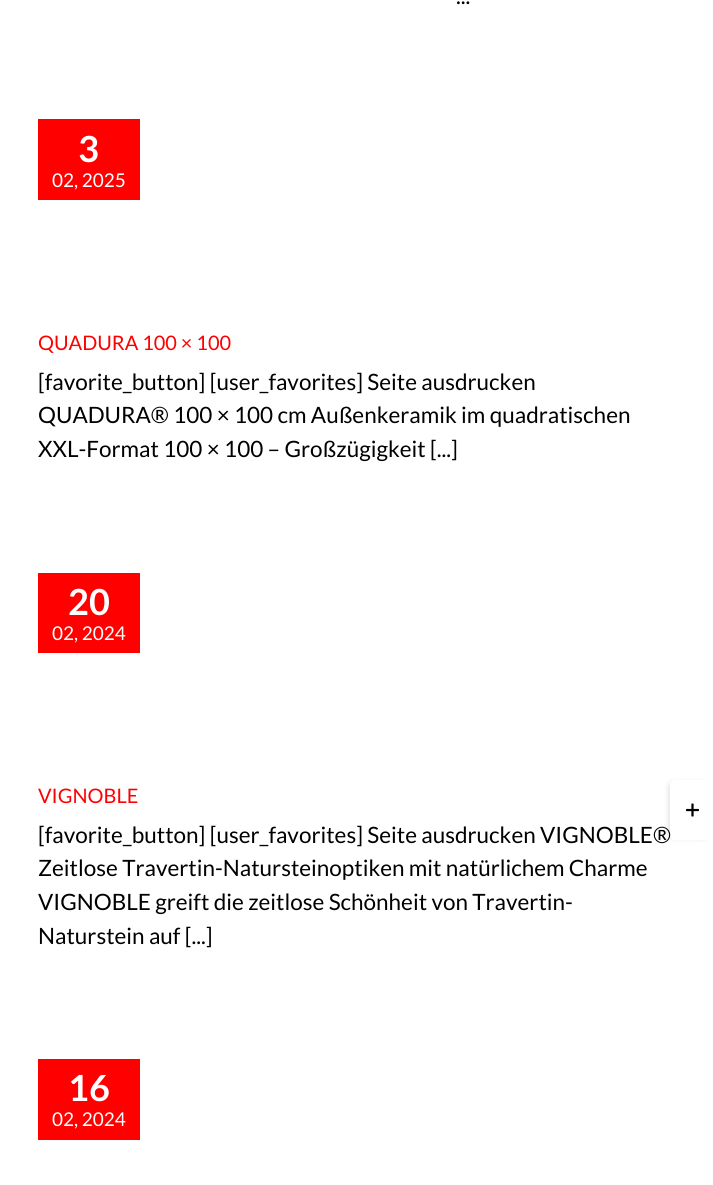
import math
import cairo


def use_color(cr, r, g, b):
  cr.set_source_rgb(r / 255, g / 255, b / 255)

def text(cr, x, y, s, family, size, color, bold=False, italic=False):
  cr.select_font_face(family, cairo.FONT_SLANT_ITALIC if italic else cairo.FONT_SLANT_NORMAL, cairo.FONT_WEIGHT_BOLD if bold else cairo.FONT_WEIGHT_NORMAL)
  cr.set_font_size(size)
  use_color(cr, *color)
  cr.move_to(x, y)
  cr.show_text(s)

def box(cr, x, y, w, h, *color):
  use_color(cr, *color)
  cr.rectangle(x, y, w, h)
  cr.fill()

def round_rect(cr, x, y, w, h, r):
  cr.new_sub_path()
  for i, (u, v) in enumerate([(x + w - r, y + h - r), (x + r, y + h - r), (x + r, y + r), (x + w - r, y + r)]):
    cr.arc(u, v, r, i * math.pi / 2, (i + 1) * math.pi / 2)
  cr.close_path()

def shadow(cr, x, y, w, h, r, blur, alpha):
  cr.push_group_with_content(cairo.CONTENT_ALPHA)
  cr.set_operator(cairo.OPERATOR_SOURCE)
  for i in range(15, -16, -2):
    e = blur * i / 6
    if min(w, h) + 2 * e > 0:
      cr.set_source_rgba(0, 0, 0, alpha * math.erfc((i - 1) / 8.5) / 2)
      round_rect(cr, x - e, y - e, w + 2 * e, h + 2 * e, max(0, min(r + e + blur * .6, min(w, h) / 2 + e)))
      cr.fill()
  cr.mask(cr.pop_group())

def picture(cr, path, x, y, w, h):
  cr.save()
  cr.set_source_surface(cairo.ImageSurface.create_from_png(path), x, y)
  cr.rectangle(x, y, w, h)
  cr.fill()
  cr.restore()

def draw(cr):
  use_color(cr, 255, 255, 255)
  cr.paint()
  box(cr, 38, 119, 102, 81, 255, 0, 0)
  box(cr, 38, 573, 102, 80, 255, 0, 0)
  box(cr, 38, 1059, 102, 81, 255, 0, 0)
  cr.save()
  cr.set_fill_rule(cairo.FILL_RULE_EVEN_ODD)
  cr.new_path()
  cr.move_to(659, 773)
  cr.line_to(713, 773)
  cr.line_to(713, 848)
  cr.line_to(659, 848)
  cr.close_path()
  cr.move_to(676, 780)
  cr.line_to(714, 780)
  cr.line_to(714, 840)
  cr.line_to(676, 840)
  cr.curve_to(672.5, 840, 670, 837.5, 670, 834)
  cr.line_to(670, 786)
  cr.curve_to(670, 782.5, 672.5, 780, 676, 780)
  cr.close_path()
  cr.clip()
  use_color(cr, 0, 0, 0)
  shadow(cr, 669, 783, 39, 55, 4, 3, 0.14)
  cr.restore()
  cr.set_source_rgba(1, 1, 1, 0.9)
  cr.new_path()
  cr.move_to(676, 780)
  cr.line_to(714, 780)
  cr.line_to(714, 840)
  cr.line_to(676, 840)
  cr.curve_to(672.5, 840, 670, 837.5, 670, 834)
  cr.line_to(670, 786)
  cr.curve_to(670, 782.5, 672.5, 780, 676, 780)
  cr.close_path()
  cr.fill()
  picture(cr, "img_01.png", 686, 803, 13, 14)
  text(cr, 456, 4, "...", "Lato", 22.5, (0, 0, 0))
  text(cr, 78, 162, "3", "Lato", 36, (255, 255, 255), bold=True)
  text(cr, 52, 187, "02, 2025", "Lato", 19, (255, 255, 255))
  text(cr, 38, 350, "QUADURA 100 × 100", "Lato", 20, (255, 0, 0))
  text(cr, 38, 390, "[favorite_button] [user_favorites] Seite ausdrucken", "Lato", 22.5, (0, 0, 0))
  text(cr, 38, 423, "QUADURA® 100 × 100 cm Außenkeramik im quadratischen", "Lato", 22.5, (0, 0, 0))
  text(cr, 38, 457, "XXL-Format 100 × 100 – Großzügigkeit [...]", "Lato", 22.5, (0, 0, 0))
  text(cr, 68, 615, "20", "Lato", 36, (255, 255, 255), bold=True)
  text(cr, 52, 640, "02, 2024", "Lato", 19, (255, 255, 255))
  text(cr, 38, 803, "VIGNOBLE", "Lato", 20, (255, 0, 0))
  text(cr, 38, 843, "[favorite_button] [user_favorites] Seite ausdrucken VIGNOBLE®", "Lato", 22.5, (0, 0, 0))
  text(cr, 38, 876, "Zeitlose Travertin-Natursteinoptiken mit natürlichem Charme", "Lato", 22.5, (0, 0, 0))
  text(cr, 38, 910, "VIGNOBLE greift die zeitlose Schönheit von Travertin-", "Lato", 22.5, (0, 0, 0))
  text(cr, 38, 944, "Naturstein auf [...]", "Lato", 22.5, (0, 0, 0))
  text(cr, 68, 1101, "16", "Lato", 36, (255, 255, 255), bold=True)
  text(cr, 52, 1126, "02, 2024", "Lato", 19, (255, 255, 255))


surface = cairo.ImageSurface(cairo.FORMAT_RGB24, 713, 1185)
cr = cairo.Context(surface)
options = cairo.FontOptions()
options.set_hint_metrics(cairo.HINT_METRICS_OFF)
options.set_hint_style(cairo.HINT_STYLE_NONE)
cr.set_font_options(options)
cr.set_miter_limit(4)
draw(cr)
surface.write_to_png("out.png")
